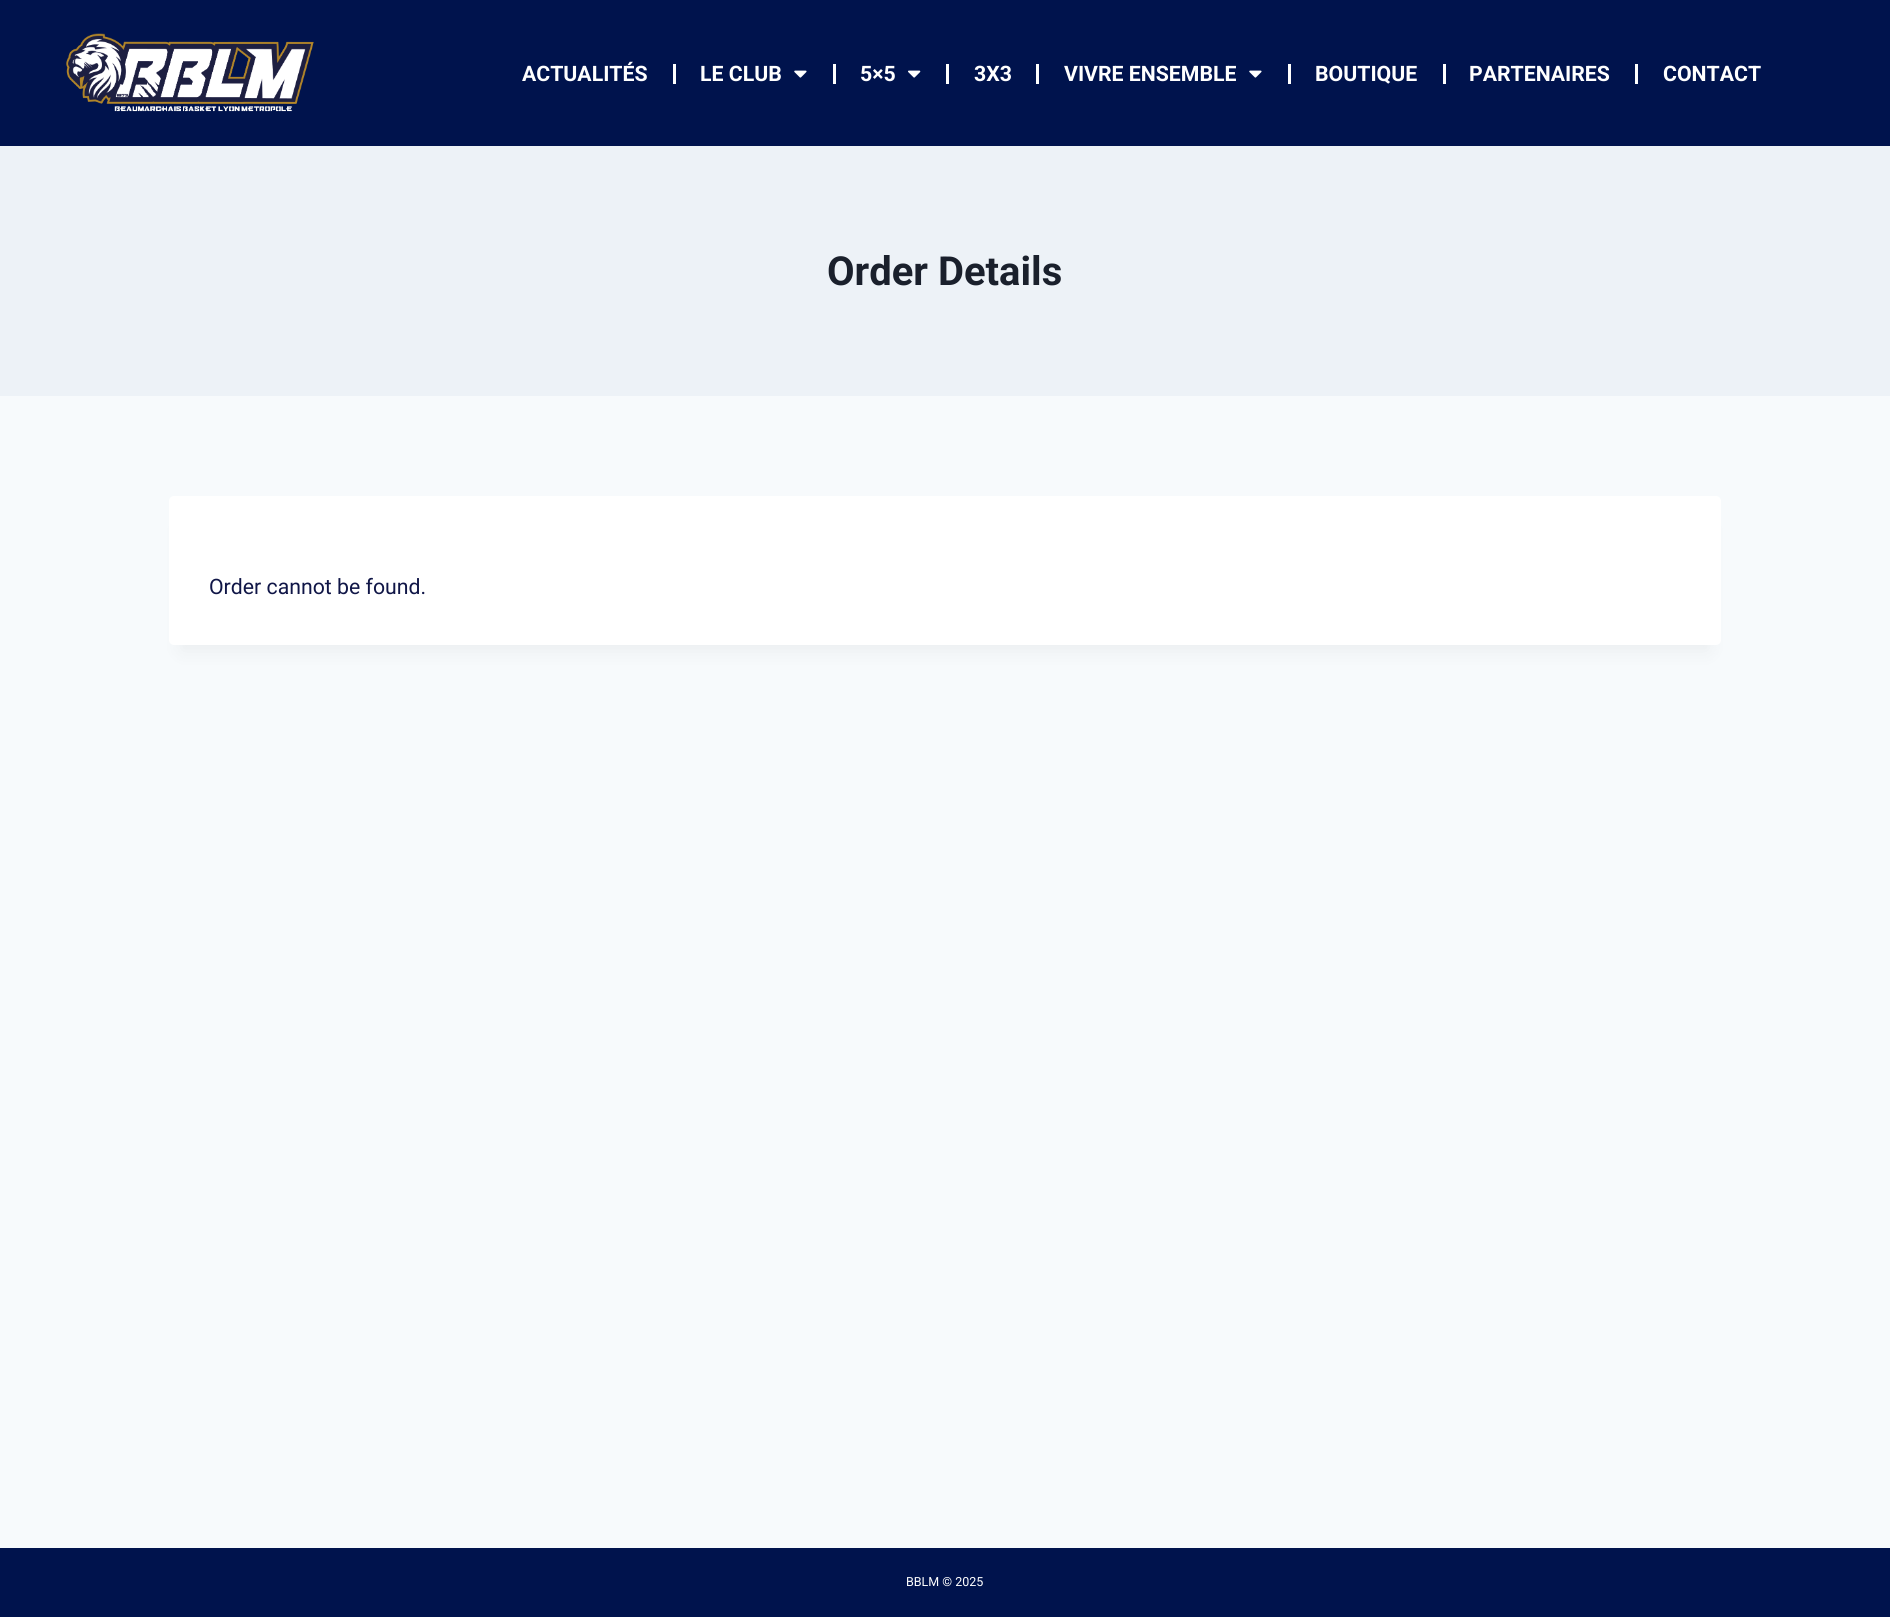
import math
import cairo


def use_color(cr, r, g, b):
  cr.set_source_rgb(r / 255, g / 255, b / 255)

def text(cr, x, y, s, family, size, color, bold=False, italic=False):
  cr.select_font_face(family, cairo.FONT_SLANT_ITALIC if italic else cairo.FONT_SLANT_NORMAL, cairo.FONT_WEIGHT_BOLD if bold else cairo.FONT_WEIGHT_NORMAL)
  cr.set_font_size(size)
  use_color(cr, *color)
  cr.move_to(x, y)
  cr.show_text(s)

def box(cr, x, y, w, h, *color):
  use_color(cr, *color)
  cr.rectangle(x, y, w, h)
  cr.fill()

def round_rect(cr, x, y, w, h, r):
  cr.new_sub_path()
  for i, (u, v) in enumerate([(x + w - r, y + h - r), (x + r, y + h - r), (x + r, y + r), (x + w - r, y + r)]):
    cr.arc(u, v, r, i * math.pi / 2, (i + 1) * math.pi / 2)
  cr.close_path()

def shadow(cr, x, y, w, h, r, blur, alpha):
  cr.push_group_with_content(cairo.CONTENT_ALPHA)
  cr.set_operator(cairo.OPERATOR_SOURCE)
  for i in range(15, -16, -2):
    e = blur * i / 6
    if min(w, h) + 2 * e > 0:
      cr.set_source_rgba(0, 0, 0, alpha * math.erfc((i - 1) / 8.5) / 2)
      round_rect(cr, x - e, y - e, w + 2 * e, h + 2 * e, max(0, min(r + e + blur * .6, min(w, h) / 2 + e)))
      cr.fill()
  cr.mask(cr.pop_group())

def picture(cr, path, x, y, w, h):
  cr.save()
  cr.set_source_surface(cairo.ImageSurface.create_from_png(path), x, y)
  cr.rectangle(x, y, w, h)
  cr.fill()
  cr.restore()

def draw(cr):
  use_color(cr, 247, 250, 252)
  cr.paint()
  box(cr, 0, 0, 1890, 146, 0, 19, 77)
  picture(cr, "img_01.png", 66, 33, 248, 79)
  box(cr, 673, 64, 3, 20, 255, 255, 255)
  picture(cr, "img_02.png", 794, 70, 13, 8)
  box(cr, 833, 64, 3, 20, 255, 255, 255)
  picture(cr, "img_03.png", 908, 70, 13, 8)
  box(cr, 946, 64, 3, 20, 255, 255, 255)
  box(cr, 1036, 64, 3, 20, 255, 255, 255)
  picture(cr, "img_02.png", 1249, 70, 13, 8)
  box(cr, 1288, 64, 3, 20, 255, 255, 255)
  box(cr, 1443, 64, 3, 20, 255, 255, 255)
  box(cr, 1635, 64, 3, 20, 255, 255, 255)
  box(cr, 0, 146, 1890, 250, 237, 242, 247)
  use_color(cr, 0, 0, 0)
  shadow(cr, 181, 528, 1528, 123, 0, 9.5, 0.05)
  use_color(cr, 255, 255, 255)
  round_rect(cr, 169, 496, 1552, 149, 5)
  cr.fill()
  box(cr, 0, 1548, 1890, 69, 0, 19, 77)
  text(cr, 522, 81, "ACTUALITÉS", "Roboto", 21.25, (255, 255, 255), bold=True)
  text(cr, 700, 81, "LE CLUB", "Roboto", 21.25, (255, 255, 255), bold=True)
  text(cr, 860, 81, "5×5", "Roboto", 21.25, (255, 255, 255), bold=True)
  text(cr, 974, 81, "3X3", "Roboto", 21.25, (255, 255, 255), bold=True)
  text(cr, 1064, 81, "VIVRE ENSEMBLE", "Roboto", 21.25, (255, 255, 255), bold=True)
  text(cr, 1315, 81, "BOUTIQUE", "Roboto", 21.25, (255, 255, 255), bold=True)
  text(cr, 1469, 81, "PARTENAIRES", "Roboto", 21.25, (255, 255, 255), bold=True)
  text(cr, 1663, 81, "CONTACT", "Roboto", 21.25, (255, 255, 255), bold=True)
  text(cr, 827, 285, "Order Details", "Roboto", 40, (26, 32, 44), bold=True)
  text(cr, 209, 594, "Order cannot be found.", "Roboto", 21.25, (16, 22, 71))
  text(cr, 906, 1586, "BBLM © 2025", "Roboto", 12.5, (255, 255, 255))


surface = cairo.ImageSurface(cairo.FORMAT_RGB24, 1890, 1617)
cr = cairo.Context(surface)
options = cairo.FontOptions()
options.set_hint_metrics(cairo.HINT_METRICS_OFF)
options.set_hint_style(cairo.HINT_STYLE_NONE)
cr.set_font_options(options)
cr.set_miter_limit(4)
draw(cr)
surface.write_to_png("out.png")
